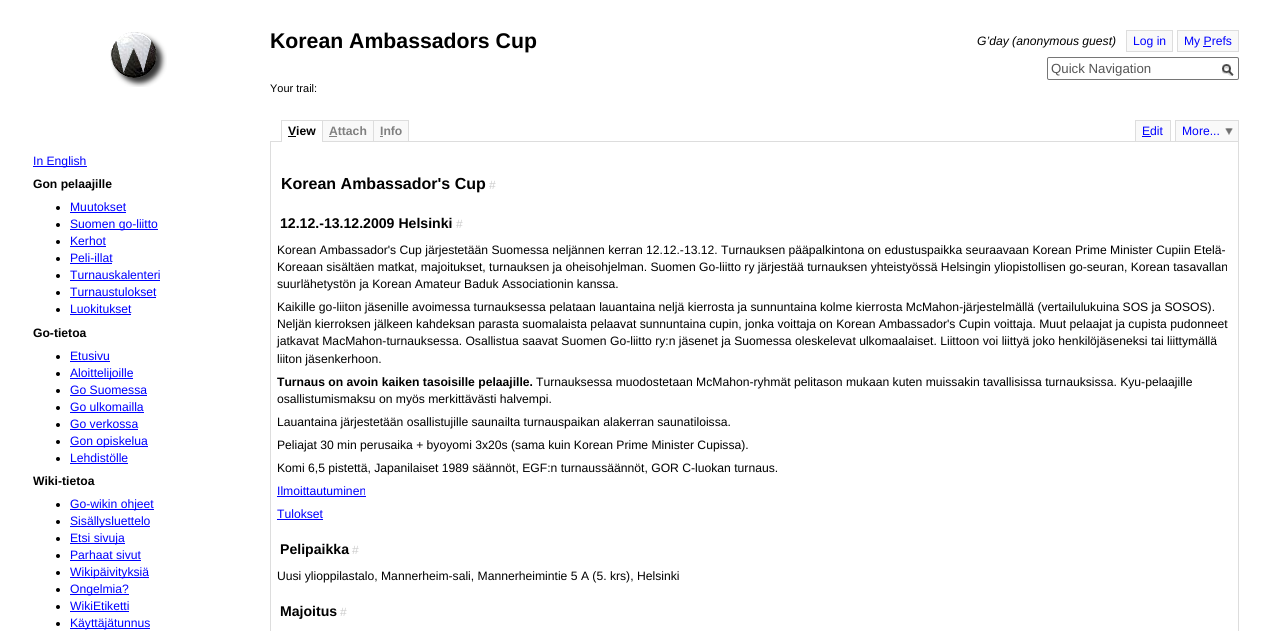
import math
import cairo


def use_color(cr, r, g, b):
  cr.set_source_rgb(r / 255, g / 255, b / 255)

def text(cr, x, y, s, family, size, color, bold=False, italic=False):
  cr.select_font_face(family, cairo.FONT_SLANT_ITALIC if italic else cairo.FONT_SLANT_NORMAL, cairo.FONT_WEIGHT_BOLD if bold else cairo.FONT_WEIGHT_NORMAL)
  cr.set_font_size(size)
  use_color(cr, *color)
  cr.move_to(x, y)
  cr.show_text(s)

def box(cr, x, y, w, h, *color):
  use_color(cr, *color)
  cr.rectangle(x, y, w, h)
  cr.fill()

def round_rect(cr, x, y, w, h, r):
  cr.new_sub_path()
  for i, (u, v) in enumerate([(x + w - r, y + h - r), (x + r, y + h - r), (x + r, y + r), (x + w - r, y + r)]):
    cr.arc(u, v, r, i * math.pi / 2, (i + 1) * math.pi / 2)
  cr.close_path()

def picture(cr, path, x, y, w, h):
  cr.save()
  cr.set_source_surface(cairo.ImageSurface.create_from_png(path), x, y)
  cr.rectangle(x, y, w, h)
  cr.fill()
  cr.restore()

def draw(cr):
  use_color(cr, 255, 255, 255)
  cr.paint()
  picture(cr, "img_01.png", 110, 32, 57, 55)
  use_color(cr, 249, 249, 249)
  cr.rectangle(1126.5, 30.5, 46, 21)
  cr.fill_preserve()
  use_color(cr, 221, 221, 221)
  cr.set_line_width(1)
  cr.stroke()
  box(cr, 1178, 31, 25, 20, 249, 249, 249)
  box(cr, 1177, 30, 26, 1, 221, 221, 221)
  box(cr, 1177, 51, 26, 1, 221, 221, 221)
  box(cr, 1177, 30, 1, 22, 221, 221, 221)
  box(cr, 1203, 30, 8, 22, 249, 249, 249)
  box(cr, 1203, 30, 36, 1, 221, 221, 221)
  box(cr, 1203, 51, 8, 1, 221, 221, 221)
  box(cr, 1211, 31, 27, 20, 249, 249, 249)
  box(cr, 1238, 30, 1, 22, 221, 221, 221)
  box(cr, 1211, 51, 28, 1, 221, 221, 221)
  box(cr, 1203, 46, 8, 1, 0, 0, 255)
  round_rect(cr, 1047.5, 57.5, 191, 22, 1.5)
  use_color(cr, 118, 118, 118)
  cr.stroke()
  picture(cr, "img_02.png", 1222, 64, 12, 12)
  box(cr, 33, 166, 54, 1, 0, 0, 255)
  use_color(cr, 0, 0, 0)
  cr.arc(58, 208, 2, 0, 2 * math.pi)
  cr.fill()
  box(cr, 70, 212, 56, 1, 0, 0, 255)
  use_color(cr, 0, 0, 0)
  cr.arc(58, 225, 2, 0, 2 * math.pi)
  cr.fill()
  box(cr, 70, 229, 88, 1, 0, 0, 255)
  use_color(cr, 0, 0, 0)
  cr.arc(58, 242, 2, 0, 2 * math.pi)
  cr.fill()
  box(cr, 70, 246, 36, 1, 0, 0, 255)
  use_color(cr, 0, 0, 0)
  cr.arc(58, 259, 2, 0, 2 * math.pi)
  cr.fill()
  box(cr, 70, 263, 42, 1, 0, 0, 255)
  use_color(cr, 0, 0, 0)
  cr.arc(58, 276, 2, 0, 2 * math.pi)
  cr.fill()
  box(cr, 70, 280, 90, 1, 0, 0, 255)
  use_color(cr, 0, 0, 0)
  cr.arc(58, 293, 2, 0, 2 * math.pi)
  cr.fill()
  box(cr, 70, 297, 86, 1, 0, 0, 255)
  use_color(cr, 0, 0, 0)
  cr.arc(58, 310, 2, 0, 2 * math.pi)
  cr.fill()
  box(cr, 70, 314, 61, 1, 0, 0, 255)
  use_color(cr, 0, 0, 0)
  cr.arc(58, 357, 2, 0, 2 * math.pi)
  cr.fill()
  box(cr, 70, 361, 40, 1, 0, 0, 255)
  use_color(cr, 0, 0, 0)
  cr.arc(58, 374, 2, 0, 2 * math.pi)
  cr.fill()
  box(cr, 70, 378, 63, 1, 0, 0, 255)
  use_color(cr, 0, 0, 0)
  cr.arc(58, 391, 2, 0, 2 * math.pi)
  cr.fill()
  box(cr, 70, 395, 77, 1, 0, 0, 255)
  use_color(cr, 0, 0, 0)
  cr.arc(58, 408, 2, 0, 2 * math.pi)
  cr.fill()
  box(cr, 70, 412, 74, 1, 0, 0, 255)
  use_color(cr, 0, 0, 0)
  cr.arc(58, 425, 2, 0, 2 * math.pi)
  cr.fill()
  box(cr, 70, 429, 68, 1, 0, 0, 255)
  use_color(cr, 0, 0, 0)
  cr.arc(58, 442, 2, 0, 2 * math.pi)
  cr.fill()
  box(cr, 70, 446, 78, 1, 0, 0, 255)
  use_color(cr, 0, 0, 0)
  cr.arc(58, 459, 2, 0, 2 * math.pi)
  cr.fill()
  box(cr, 70, 463, 58, 1, 0, 0, 255)
  use_color(cr, 0, 0, 0)
  cr.arc(58, 505, 2, 0, 2 * math.pi)
  cr.fill()
  box(cr, 70, 509, 84, 1, 0, 0, 255)
  use_color(cr, 0, 0, 0)
  cr.arc(58, 522, 2, 0, 2 * math.pi)
  cr.fill()
  box(cr, 70, 526, 80, 1, 0, 0, 255)
  use_color(cr, 0, 0, 0)
  cr.arc(58, 539, 2, 0, 2 * math.pi)
  cr.fill()
  box(cr, 70, 543, 55, 1, 0, 0, 255)
  use_color(cr, 0, 0, 0)
  cr.arc(58, 556, 2, 0, 2 * math.pi)
  cr.fill()
  box(cr, 70, 560, 71, 1, 0, 0, 255)
  use_color(cr, 0, 0, 0)
  cr.arc(58, 573, 2, 0, 2 * math.pi)
  cr.fill()
  box(cr, 70, 577, 79, 1, 0, 0, 255)
  use_color(cr, 0, 0, 0)
  cr.arc(58, 590, 2, 0, 2 * math.pi)
  cr.fill()
  box(cr, 70, 594, 59, 1, 0, 0, 255)
  use_color(cr, 0, 0, 0)
  cr.arc(58, 607, 2, 0, 2 * math.pi)
  cr.fill()
  box(cr, 70, 611, 59, 1, 0, 0, 255)
  use_color(cr, 0, 0, 0)
  cr.arc(58, 624, 2, 0, 2 * math.pi)
  cr.fill()
  box(cr, 70, 628, 80, 1, 0, 0, 255)
  box(cr, 281, 120, 42, 1, 221, 221, 221)
  cr.rectangle(270.5, 141.5, 968, 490)
  cr.stroke()
  box(cr, 281, 141, 42, 1, 255, 255, 255)
  box(cr, 281, 120, 1, 22, 221, 221, 221)
  box(cr, 288, 136, 8, 1, 0, 0, 0)
  use_color(cr, 249, 249, 249)
  cr.rectangle(322.5, 120.5, 51, 21)
  cr.fill_preserve()
  use_color(cr, 221, 221, 221)
  cr.stroke()
  box(cr, 329, 136, 8, 1, 128, 128, 128)
  use_color(cr, 249, 249, 249)
  cr.rectangle(373.5, 120.5, 35, 21)
  cr.fill_preserve()
  use_color(cr, 221, 221, 221)
  cr.stroke()
  box(cr, 380, 136, 3, 1, 128, 128, 128)
  box(cr, 1136, 121, 34, 20, 249, 249, 249)
  box(cr, 1135, 120, 36, 1, 221, 221, 221)
  box(cr, 1170, 120, 1, 21, 221, 221, 221)
  box(cr, 1135, 120, 1, 21, 221, 221, 221)
  box(cr, 1142, 136, 9, 1, 0, 0, 255)
  box(cr, 1176, 121, 62, 20, 249, 249, 249)
  picture(cr, "img_03.png", 1225, 128, 8, 7)
  box(cr, 1175, 120, 64, 1, 221, 221, 221)
  box(cr, 1238, 120, 1, 21, 221, 221, 221)
  box(cr, 1175, 120, 1, 21, 221, 221, 221)
  box(cr, 277, 496, 89, 1, 0, 0, 255)
  box(cr, 277, 519, 46, 1, 0, 0, 255)
  text(cr, 270, 48, "Korean Ambassadors Cup", "Liberation Sans", 21.25, (0, 0, 0), bold=True)
  text(cr, 977, 45, "G’day (anonymous guest)", "Liberation Sans", 12.15, (0, 0, 0), italic=True)
  text(cr, 1133, 45, "Log in", "Liberation Sans", 12.15, (0, 0, 255))
  text(cr, 1184, 45, "My Prefs", "Liberation Sans", 12.15, (0, 0, 255))
  text(cr, 1051, 73, "Quick Navigation", "Liberation Sans", 13.25, (85, 85, 85))
  text(cr, 270, 92, "Your trail:", "Liberation Sans", 11, (0, 0, 0))
  text(cr, 33, 165, "In English", "Liberation Sans", 12.15, (0, 0, 255))
  text(cr, 33, 188, "Gon pelaajille", "Liberation Sans", 12.15, (0, 0, 0), bold=True)
  text(cr, 70, 211, "Muutokset", "Liberation Sans", 12.15, (0, 0, 255))
  text(cr, 70, 228, "Suomen go-liitto", "Liberation Sans", 12.15, (0, 0, 255))
  text(cr, 70, 245, "Kerhot", "Liberation Sans", 12.15, (0, 0, 255))
  text(cr, 70, 262, "Peli-illat", "Liberation Sans", 12.15, (0, 0, 255))
  text(cr, 70, 279, "Turnauskalenteri", "Liberation Sans", 12.15, (0, 0, 255))
  text(cr, 70, 296, "Turnaustulokset", "Liberation Sans", 12.15, (0, 0, 255))
  text(cr, 70, 313, "Luokitukset", "Liberation Sans", 12.15, (0, 0, 255))
  text(cr, 33, 337, "Go-tietoa", "Liberation Sans", 12.15, (0, 0, 0), bold=True)
  text(cr, 70, 360, "Etusivu", "Liberation Sans", 12.15, (0, 0, 255))
  text(cr, 70, 377, "Aloittelijoille", "Liberation Sans", 12.15, (0, 0, 255))
  text(cr, 70, 394, "Go Suomessa", "Liberation Sans", 12.15, (0, 0, 255))
  text(cr, 70, 411, "Go ulkomailla", "Liberation Sans", 12.15, (0, 0, 255))
  text(cr, 70, 428, "Go verkossa", "Liberation Sans", 12.15, (0, 0, 255))
  text(cr, 70, 445, "Gon opiskelua", "Liberation Sans", 12.15, (0, 0, 255))
  text(cr, 70, 462, "Lehdistölle", "Liberation Sans", 12.15, (0, 0, 255))
  text(cr, 33, 485, "Wiki-tietoa", "Liberation Sans", 12.15, (0, 0, 0), bold=True)
  text(cr, 70, 508, "Go-wikin ohjeet", "Liberation Sans", 12.15, (0, 0, 255))
  text(cr, 70, 525, "Sisällysluettelo", "Liberation Sans", 12.15, (0, 0, 255))
  text(cr, 70, 542, "Etsi sivuja", "Liberation Sans", 12.15, (0, 0, 255))
  text(cr, 70, 559, "Parhaat sivut", "Liberation Sans", 12.15, (0, 0, 255))
  text(cr, 70, 576, "Wikipäivityksiä", "Liberation Sans", 12.15, (0, 0, 255))
  text(cr, 70, 593, "Ongelmia?", "Liberation Sans", 12.15, (0, 0, 255))
  text(cr, 70, 610, "WikiEtiketti", "Liberation Sans", 12.15, (0, 0, 255))
  text(cr, 70, 627, "Käyttäjätunnus", "Liberation Sans", 12.15, (0, 0, 255))
  text(cr, 288, 135, "View", "Liberation Sans", 12.15, (0, 0, 0), bold=True)
  text(cr, 329, 135, "Attach", "Liberation Sans", 12.15, (128, 128, 128), bold=True)
  text(cr, 380, 135, "Info", "Liberation Sans", 12.15, (128, 128, 128), bold=True)
  text(cr, 1142, 135, "Edit", "Liberation Sans", 12.15, (0, 0, 255))
  text(cr, 1182, 135, "More...", "Liberation Sans", 12.15, (0, 0, 255))
  text(cr, 281, 189, "Korean Ambassador's Cup", "Liberation Sans", 16, (0, 0, 0), bold=True)
  text(cr, 489, 189, "#", "Liberation Sans", 12, (204, 204, 204))
  text(cr, 280, 228, "12.12.-13.12.2009 Helsinki", "Liberation Sans", 14.1, (0, 0, 0), bold=True)
  text(cr, 456, 228, "#", "Liberation Sans", 12, (204, 204, 204))
  text(cr, 277, 254, "Korean Ambassador's Cup järjestetään Suomessa neljännen kerran 12.12.-13.12. Turnauksen pääpalkintona on edustuspaikka seuraavaan Korean Prime Minister Cupiin Etelä-", "Liberation Sans", 12.15, (0, 0, 0))
  text(cr, 277, 271, "Koreaan sisältäen matkat, majoitukset, turnauksen ja oheisohjelman. Suomen Go-liitto ry järjestää turnauksen yhteistyössä Helsingin yliopistollisen go-seuran, Korean tasavallan", "Liberation Sans", 12.15, (0, 0, 0))
  text(cr, 277, 288, "suurlähetystön ja Korean Amateur Baduk Associationin kanssa.", "Liberation Sans", 12.15, (0, 0, 0))
  text(cr, 277, 311, "Kaikille go-liiton jäsenille avoimessa turnauksessa pelataan lauantaina neljä kierrosta ja sunnuntaina kolme kierrosta McMahon-järjestelmällä (vertailulukuina SOS ja SOSOS).", "Liberation Sans", 12.15, (0, 0, 0))
  text(cr, 277, 328, "Neljän kierroksen jälkeen kahdeksan parasta suomalaista pelaavat sunnuntaina cupin, jonka voittaja on Korean Ambassador's Cupin voittaja. Muut pelaajat ja cupista pudonneet", "Liberation Sans", 12.15, (0, 0, 0))
  text(cr, 277, 345, "jatkavat MacMahon-turnauksessa. Osallistua saavat Suomen Go-liitto ry:n jäsenet ja Suomessa oleskelevat ulkomaalaiset. Liittoon voi liittyä joko henkilöjäseneksi tai liittymällä", "Liberation Sans", 12.15, (0, 0, 0))
  text(cr, 277, 363, "liiton jäsenkerhoon.", "Liberation Sans", 12.15, (0, 0, 0))
  text(cr, 277, 386, "Turnaus on avoin kaiken tasoisille pelaajille.", "Liberation Sans", 12.15, (0, 0, 0), bold=True)
  text(cr, 536, 386, "Turnauksessa muodostetaan McMahon-ryhmät pelitason mukaan kuten muissakin tavallisissa turnauksissa. Kyu-pelaajille", "Liberation Sans", 12.15, (0, 0, 0))
  text(cr, 277, 403, "osallistumismaksu on myös merkittävästi halvempi.", "Liberation Sans", 12.15, (0, 0, 0))
  text(cr, 277, 426, "Lauantaina järjestetään osallistujille saunailta turnauspaikan alakerran saunatiloissa.", "Liberation Sans", 12.15, (0, 0, 0))
  text(cr, 277, 449, "Peliajat 30 min perusaika + byoyomi 3x20s (sama kuin Korean Prime Minister Cupissa).", "Liberation Sans", 12.15, (0, 0, 0))
  text(cr, 277, 472, "Komi 6,5 pistettä, Japanilaiset 1989 säännöt, EGF:n turnaussäännöt, GOR C-luokan turnaus.", "Liberation Sans", 12.15, (0, 0, 0))
  text(cr, 277, 495, "Ilmoittautuminen", "Liberation Sans", 12.15, (0, 0, 255))
  text(cr, 277, 518, "Tulokset", "Liberation Sans", 12.15, (0, 0, 255))
  text(cr, 280, 554, "Pelipaikka", "Liberation Sans", 14.1, (0, 0, 0), bold=True)
  text(cr, 352, 554, "#", "Liberation Sans", 12, (204, 204, 204))
  text(cr, 277, 580, "Uusi ylioppilastalo, Mannerheim-sali, Mannerheimintie 5 A (5. krs), Helsinki", "Liberation Sans", 12.15, (0, 0, 0))
  text(cr, 280, 616, "Majoitus", "Liberation Sans", 14.1, (0, 0, 0), bold=True)
  text(cr, 340, 616, "#", "Liberation Sans", 12, (204, 204, 204))


surface = cairo.ImageSurface(cairo.FORMAT_RGB24, 1266, 631)
cr = cairo.Context(surface)
options = cairo.FontOptions()
options.set_hint_metrics(cairo.HINT_METRICS_OFF)
options.set_hint_style(cairo.HINT_STYLE_NONE)
cr.set_font_options(options)
cr.set_miter_limit(4)
draw(cr)
surface.write_to_png("out.png")
